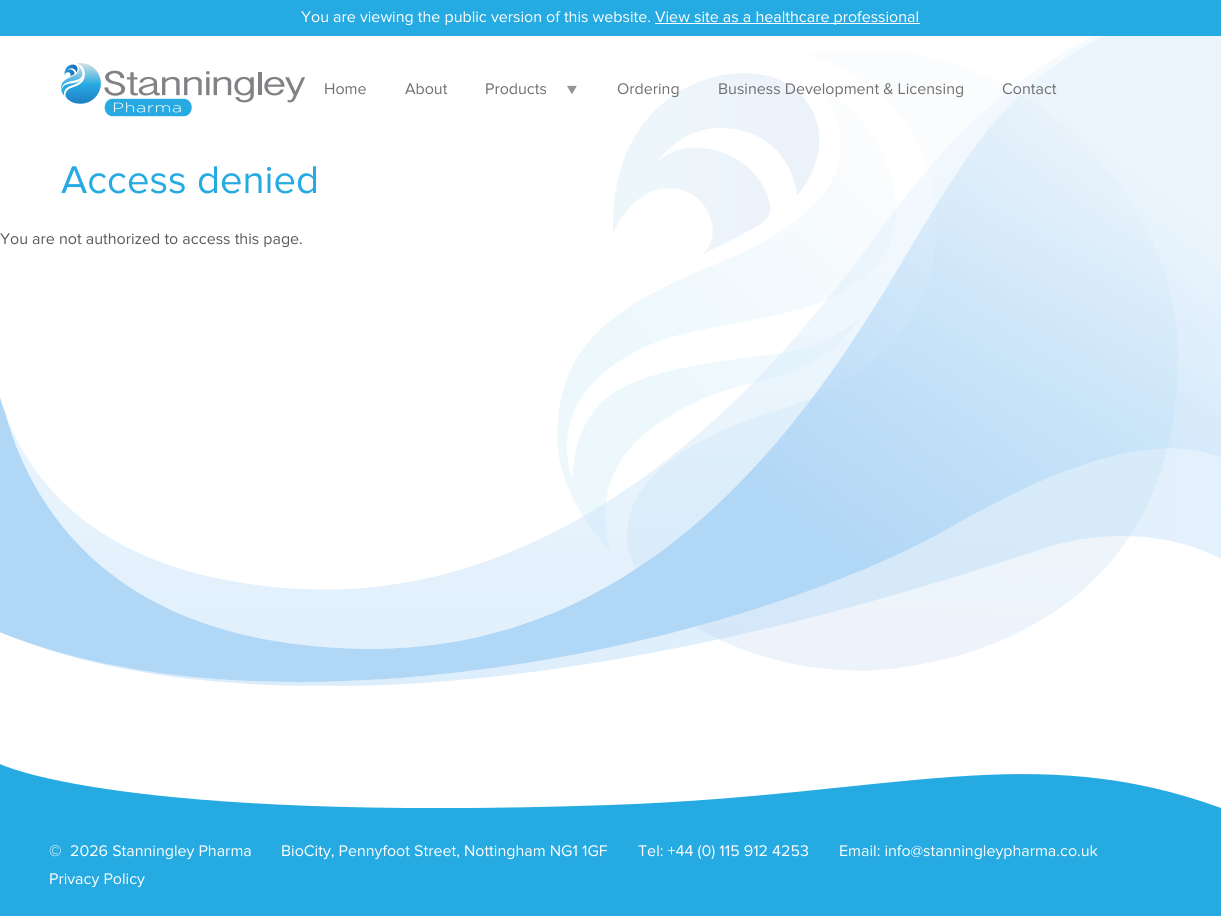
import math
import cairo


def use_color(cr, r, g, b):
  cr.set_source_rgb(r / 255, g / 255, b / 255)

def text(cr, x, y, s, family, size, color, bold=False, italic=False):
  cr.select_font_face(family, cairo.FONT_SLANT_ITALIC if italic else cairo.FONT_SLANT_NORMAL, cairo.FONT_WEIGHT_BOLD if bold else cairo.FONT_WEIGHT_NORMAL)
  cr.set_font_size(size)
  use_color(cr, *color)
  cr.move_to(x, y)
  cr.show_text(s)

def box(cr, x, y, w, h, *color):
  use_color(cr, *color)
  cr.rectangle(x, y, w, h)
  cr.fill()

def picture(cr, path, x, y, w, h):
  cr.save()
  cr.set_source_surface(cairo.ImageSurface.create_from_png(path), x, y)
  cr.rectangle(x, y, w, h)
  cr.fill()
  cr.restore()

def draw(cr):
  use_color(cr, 255, 255, 255)
  cr.paint()
  picture(cr, "img_01.png", 0, 36, 1221, 650)
  box(cr, 0, 0, 1221, 36, 37, 170, 225)
  box(cr, 655, 23, 265, 1, 255, 255, 255)
  picture(cr, "img_02.png", 61, 63, 244, 54)
  cr.save()
  cr.rectangle(0, 764, 1221, 44)
  cr.clip()
  use_color(cr, 37, 170, 225)
  cr.new_path()
  cr.move_to(0, 764)
  cr.curve_to(0, 764, 115, 822, 610, 805)
  cr.curve_to(897, 795, 1031, 739, 1221, 808)
  cr.line_to(0, 808)
  cr.close_path()
  cr.fill()
  cr.restore()
  box(cr, 0, 808, 1221, 108, 37, 170, 225)
  text(cr, 301, 22, "You are viewing the public version of this website.", "Proxima Nova", 16, (255, 255, 255))
  text(cr, 655, 22, "View site as a healthcare professional", "Proxima Nova", 16, (255, 255, 255))
  text(cr, 324, 94, "Home", "Proxima Nova", 16, (112, 112, 112))
  text(cr, 405, 94, "About", "Proxima Nova", 16, (112, 112, 112))
  text(cr, 485, 94, "Products", "Proxima Nova", 16, (112, 112, 112))
  text(cr, 567, 94, "▼", "Proxima Nova", 16, (148, 148, 148))
  text(cr, 617, 94, "Ordering", "Proxima Nova", 16, (112, 112, 112))
  text(cr, 718, 94, "Business Development & Licensing", "Proxima Nova", 16, (112, 112, 112))
  text(cr, 1002, 94, "Contact", "Proxima Nova", 16, (112, 112, 112))
  text(cr, 61, 193, "Access denied", "Proxima Nova", 40, (37, 170, 225))
  text(cr, 0, 244, "You are not authorized to access this page.", "Proxima Nova", 16, (90, 90, 90))
  text(cr, 49, 856, "©", "Proxima Nova", 16, (255, 255, 255))
  text(cr, 70, 856, "2026 Stanningley Pharma", "Proxima Nova", 16, (255, 255, 255))
  text(cr, 281, 856, "BioCity, Pennyfoot Street, Nottingham NG1 1GF", "Proxima Nova", 16, (255, 255, 255))
  text(cr, 638, 856, "Tel: +44 (0) 115 912 4253", "Proxima Nova", 16, (255, 255, 255))
  text(cr, 839, 856, "Email: info@stanningleypharma.co.uk", "Proxima Nova", 16, (255, 255, 255))
  text(cr, 49, 884, "Privacy Policy", "Proxima Nova", 16, (255, 255, 255))


surface = cairo.ImageSurface(cairo.FORMAT_RGB24, 1221, 916)
cr = cairo.Context(surface)
options = cairo.FontOptions()
options.set_hint_metrics(cairo.HINT_METRICS_OFF)
options.set_hint_style(cairo.HINT_STYLE_NONE)
cr.set_font_options(options)
cr.set_miter_limit(4)
draw(cr)
surface.write_to_png("out.png")
